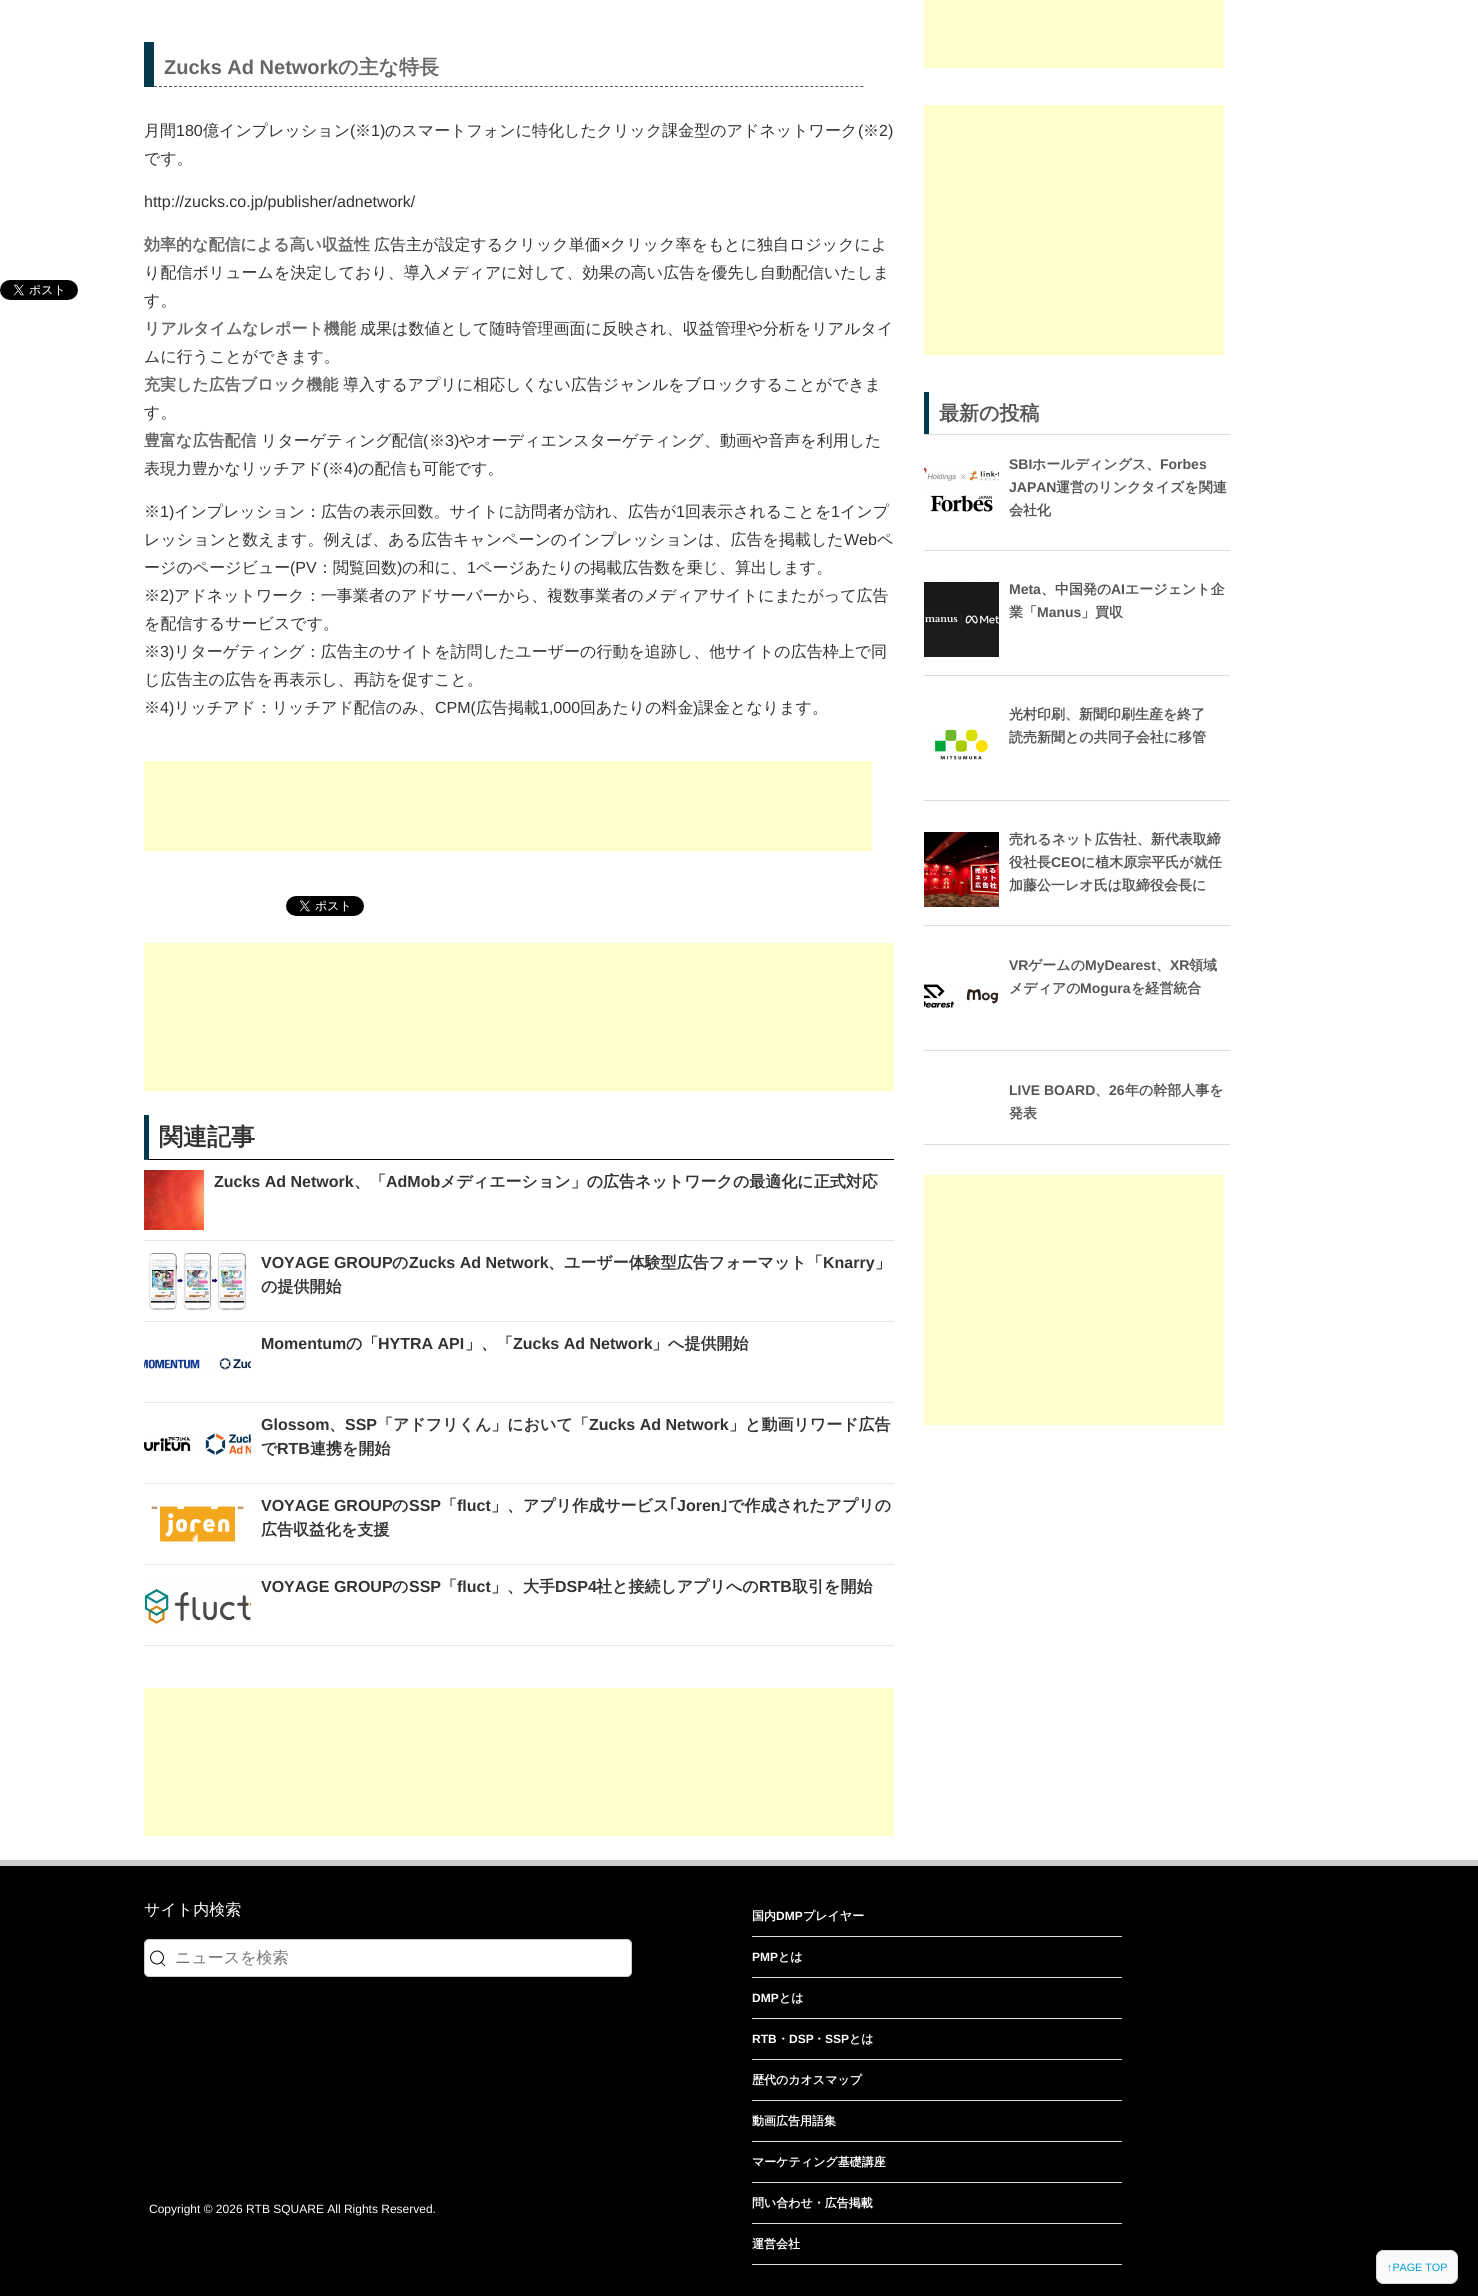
import math
import cairo


def use_color(cr, r, g, b):
  cr.set_source_rgb(r / 255, g / 255, b / 255)

def text(cr, x, y, s, family, size, color, bold=False, italic=False):
  cr.select_font_face(family, cairo.FONT_SLANT_ITALIC if italic else cairo.FONT_SLANT_NORMAL, cairo.FONT_WEIGHT_BOLD if bold else cairo.FONT_WEIGHT_NORMAL)
  cr.set_font_size(size)
  use_color(cr, *color)
  cr.move_to(x, y)
  cr.show_text(s)

def box(cr, x, y, w, h, *color):
  use_color(cr, *color)
  cr.rectangle(x, y, w, h)
  cr.fill()

def round_rect(cr, x, y, w, h, r):
  cr.new_sub_path()
  for i, (u, v) in enumerate([(x + w - r, y + h - r), (x + r, y + h - r), (x + r, y + r), (x + w - r, y + r)]):
    cr.arc(u, v, r, i * math.pi / 2, (i + 1) * math.pi / 2)
  cr.close_path()

def picture(cr, path, x, y, w, h):
  cr.save()
  cr.set_source_surface(cairo.ImageSurface.create_from_png(path), x, y)
  cr.rectangle(x, y, w, h)
  cr.fill()
  cr.restore()

def draw(cr):
  use_color(cr, 255, 255, 255)
  cr.paint()
  picture(cr, "img_01.png", 0, 280, 78, 20)
  box(cr, 144, 42, 10, 45, 4, 56, 76)
  cr.new_path()
  cr.move_to(154, 86.5)
  cr.line_to(864, 86.5)
  use_color(cr, 85, 85, 85)
  cr.set_line_width(1)
  cr.set_dash([3, 2.01])
  cr.stroke()
  box(cr, 144, 761, 728, 90, 255, 255, 204)
  picture(cr, "img_02.png", 286, 896, 78, 20)
  box(cr, 144, 943, 750, 148, 255, 255, 204)
  use_color(cr, 0, 0, 0)
  cr.new_path()
  cr.move_to(894, 1160)
  cr.line_to(144, 1160)
  cr.line_to(149, 1159)
  cr.line_to(894, 1159)
  cr.close_path()
  cr.fill()
  use_color(cr, 4, 56, 76)
  cr.new_path()
  cr.move_to(144, 1160)
  cr.line_to(144, 1115)
  cr.line_to(149, 1115)
  cr.line_to(149, 1159)
  cr.close_path()
  cr.fill()
  box(cr, 144, 1240, 750, 1, 230, 230, 230)
  picture(cr, "img_03.png", 144, 1170, 60, 60)
  box(cr, 144, 1321, 750, 1, 230, 230, 230)
  picture(cr, "img_04.png", 148, 1251, 99, 60)
  box(cr, 144, 1402, 750, 1, 230, 230, 230)
  picture(cr, "img_05.png", 144, 1357, 107, 13)
  box(cr, 144, 1483, 750, 1, 230, 230, 230)
  picture(cr, "img_06.png", 144, 1433, 107, 22)
  box(cr, 144, 1564, 750, 1, 230, 230, 230)
  picture(cr, "img_07.png", 151, 1506, 93, 36)
  box(cr, 144, 1645, 750, 1, 230, 230, 230)
  picture(cr, "img_08.png", 144, 1583, 107, 42)
  box(cr, 144, 1688, 750, 148, 255, 255, 204)
  box(cr, 924, 0, 300, 68, 255, 255, 204)
  box(cr, 924, 105, 300, 250, 255, 255, 204)
  box(cr, 924, 392, 5, 42, 4, 56, 76)
  box(cr, 924, 434, 306, 1, 221, 221, 221)
  box(cr, 924, 550, 306, 1, 221, 221, 221)
  picture(cr, "img_09.png", 924, 465, 75, 47)
  box(cr, 924, 675, 306, 1, 221, 221, 221)
  picture(cr, "img_10.png", 924, 582, 75, 75)
  box(cr, 924, 800, 306, 1, 221, 221, 221)
  picture(cr, "img_11.png", 935, 729, 53, 31)
  box(cr, 924, 925, 306, 1, 221, 221, 221)
  picture(cr, "img_12.png", 924, 832, 75, 75)
  box(cr, 924, 1050, 306, 1, 221, 221, 221)
  picture(cr, "img_13.png", 924, 984, 75, 24)
  box(cr, 924, 1144, 306, 1, 221, 221, 221)
  box(cr, 924, 1175, 300, 250, 255, 255, 204)
  box(cr, 0, 1866, 1478, 430, 0, 0, 0)
  round_rect(cr, 1376.5, 2250.5, 81, 33, 7.5)
  use_color(cr, 221, 221, 221)
  cr.set_dash([])
  cr.stroke()
  use_color(cr, 250, 250, 250)
  round_rect(cr, 1376.5, 2250.5, 81, 33, 7.5)
  cr.fill_preserve()
  use_color(cr, 221, 221, 221)
  cr.stroke()
  box(cr, 0, 1860, 1478, 6, 204, 204, 204)
  use_color(cr, 255, 255, 255)
  round_rect(cr, 144.5, 1939.5, 487, 37, 4.5)
  cr.fill_preserve()
  use_color(cr, 204, 204, 204)
  cr.stroke()
  cr.new_path()
  cr.move_to(152.5, 1953)
  cr.curve_to(158.5, 1947, 167.5, 1956, 161.5, 1962)
  cr.curve_to(155.5, 1968, 146.5, 1959, 152.5, 1953)
  cr.close_path()
  use_color(cr, 0, 0, 0)
  cr.stroke()
  cr.new_path()
  cr.move_to(160.5, 1962.5)
  cr.line_to(161, 1961.5)
  cr.line_to(165.5, 1966)
  cr.line_to(165, 1966.5)
  cr.close_path()
  cr.fill()
  box(cr, 752, 1936, 370, 1, 221, 221, 221)
  box(cr, 752, 1977, 370, 1, 221, 221, 221)
  box(cr, 752, 2018, 370, 1, 221, 221, 221)
  box(cr, 752, 2059, 370, 1, 221, 221, 221)
  box(cr, 752, 2100, 370, 1, 221, 221, 221)
  box(cr, 752, 2141, 370, 1, 221, 221, 221)
  box(cr, 752, 2182, 370, 1, 221, 221, 221)
  box(cr, 752, 2223, 370, 1, 221, 221, 221)
  box(cr, 752, 2264, 370, 1, 221, 221, 221)
  text(cr, 164, 74, "Zucks Ad Network", "Liberation Sans", 20, (102, 102, 102), bold=True)
  text(cr, 338, 74, "の主な特長", "WenQuanYi Zen Hei", 20, (102, 102, 102), bold=True)
  text(cr, 144, 136, "月間", "WenQuanYi Zen Hei Medium", 16, (51, 51, 51))
  text(cr, 176, 136, "180", "Liberation Sans", 16, (51, 51, 51))
  text(cr, 203, 136, "億インプレッション", "WenQuanYi Zen Hei Medium", 16, (51, 51, 51))
  text(cr, 350, 136, "(", "Liberation Sans", 16, (51, 51, 51))
  text(cr, 355, 136, "※", "WenQuanYi Zen Hei Medium", 16, (51, 51, 51))
  text(cr, 371, 136, "1)", "Liberation Sans", 16, (51, 51, 51))
  text(cr, 385, 136, "のスマートフォンに特化したクリック課金型のアドネットワーク", "WenQuanYi Zen Hei Medium", 16, (51, 51, 51))
  text(cr, 858, 136, "(", "Liberation Sans", 16, (51, 51, 51))
  text(cr, 863, 136, "※", "WenQuanYi Zen Hei Medium", 16, (51, 51, 51))
  text(cr, 879, 136, "2)", "Liberation Sans", 16, (51, 51, 51))
  text(cr, 144, 164, "です。", "WenQuanYi Zen Hei Medium", 16, (51, 51, 51))
  text(cr, 144, 207, "http://zucks.co.jp/publisher/adnetwork/", "Liberation Sans", 16, (51, 51, 51))
  text(cr, 144, 250, "効率的な配信による高い収益性", "WenQuanYi Zen Hei", 16, (102, 102, 102), bold=True)
  text(cr, 374, 250, "広告主が設定するクリック単価", "WenQuanYi Zen Hei Medium", 16, (51, 51, 51))
  text(cr, 601, 250, "×", "Liberation Sans", 16, (51, 51, 51))
  text(cr, 610, 250, "クリック率をもとに独自ロジックによ", "WenQuanYi Zen Hei Medium", 16, (51, 51, 51))
  text(cr, 144, 278, "り配信ボリュームを決定しており、導入メディアに対して、効果の高い広告を優先し自動配信いたしま", "WenQuanYi Zen Hei Medium", 16, (51, 51, 51))
  text(cr, 144, 306, "す。", "WenQuanYi Zen Hei Medium", 16, (51, 51, 51))
  text(cr, 144, 334, "リアルタイムなレポート機能", "WenQuanYi Zen Hei", 16, (102, 102, 102), bold=True)
  text(cr, 360, 334, "成果は数値として随時管理画面に反映され、収益管理や分析をリアルタイ", "WenQuanYi Zen Hei Medium", 16, (51, 51, 51))
  text(cr, 144, 362, "ムに行うことができます。", "WenQuanYi Zen Hei Medium", 16, (51, 51, 51))
  text(cr, 144, 390, "充実した広告ブロック機能", "WenQuanYi Zen Hei", 16, (102, 102, 102), bold=True)
  text(cr, 343, 390, "導入するアプリに相応しくない広告ジャンルをブロックすることができま", "WenQuanYi Zen Hei Medium", 16, (51, 51, 51))
  text(cr, 144, 418, "す。", "WenQuanYi Zen Hei Medium", 16, (51, 51, 51))
  text(cr, 144, 446, "豊富な広告配信", "WenQuanYi Zen Hei", 16, (102, 102, 102), bold=True)
  text(cr, 261, 446, "リターゲティング配信", "WenQuanYi Zen Hei Medium", 16, (51, 51, 51))
  text(cr, 423, 446, "(", "Liberation Sans", 16, (51, 51, 51))
  text(cr, 429, 446, "※", "WenQuanYi Zen Hei Medium", 16, (51, 51, 51))
  text(cr, 445, 446, "3)", "Liberation Sans", 16, (51, 51, 51))
  text(cr, 459, 446, "やオーディエンスターゲティング、動画や音声を利用した", "WenQuanYi Zen Hei Medium", 16, (51, 51, 51))
  text(cr, 144, 474, "表現力豊かなリッチアド", "WenQuanYi Zen Hei Medium", 16, (51, 51, 51))
  text(cr, 323, 474, "(", "Liberation Sans", 16, (51, 51, 51))
  text(cr, 328, 474, "※", "WenQuanYi Zen Hei Medium", 16, (51, 51, 51))
  text(cr, 344, 474, "4)", "Liberation Sans", 16, (51, 51, 51))
  text(cr, 358, 474, "の配信も可能です。", "WenQuanYi Zen Hei Medium", 16, (51, 51, 51))
  text(cr, 144, 517, "※", "WenQuanYi Zen Hei Medium", 16, (51, 51, 51))
  text(cr, 160, 517, "1)", "Liberation Sans", 16, (51, 51, 51))
  text(cr, 174, 517, "インプレッション：広告の表示回数。サイトに訪問者が訪れ、広告が", "WenQuanYi Zen Hei Medium", 16, (51, 51, 51))
  text(cr, 676, 517, "1", "Liberation Sans", 16, (51, 51, 51))
  text(cr, 685, 517, "回表示されることを", "WenQuanYi Zen Hei Medium", 16, (51, 51, 51))
  text(cr, 831, 517, "1", "Liberation Sans", 16, (51, 51, 51))
  text(cr, 840, 517, "インプ", "WenQuanYi Zen Hei Medium", 16, (51, 51, 51))
  text(cr, 144, 545, "レッションと数えます。例えば、ある広告キャンペーンのインプレッションは、広告を掲載した", "WenQuanYi Zen Hei Medium", 16, (51, 51, 51))
  text(cr, 844, 545, "Web", "Liberation Sans", 16, (51, 51, 51))
  text(cr, 877, 545, "ペ", "WenQuanYi Zen Hei Medium", 16, (51, 51, 51))
  text(cr, 144, 573, "ージのページビュー", "WenQuanYi Zen Hei Medium", 16, (51, 51, 51))
  text(cr, 290, 573, "(PV", "Liberation Sans", 16, (51, 51, 51))
  text(cr, 317, 573, "：閲覧回数", "WenQuanYi Zen Hei Medium", 16, (51, 51, 51))
  text(cr, 397, 573, ")", "Liberation Sans", 16, (51, 51, 51))
  text(cr, 402, 573, "の和に、", "WenQuanYi Zen Hei Medium", 16, (51, 51, 51))
  text(cr, 467, 573, "1", "Liberation Sans", 16, (51, 51, 51))
  text(cr, 476, 573, "ページあたりの掲載広告数を乗じ、算出します。", "WenQuanYi Zen Hei Medium", 16, (51, 51, 51))
  text(cr, 144, 601, "※", "WenQuanYi Zen Hei Medium", 16, (51, 51, 51))
  text(cr, 160, 601, "2)", "Liberation Sans", 16, (51, 51, 51))
  text(cr, 174, 601, "アドネットワーク：一事業者のアドサーバーから、複数事業者のメディアサイトにまたがって広告", "WenQuanYi Zen Hei Medium", 16, (51, 51, 51))
  text(cr, 144, 629, "を配信するサービスです。", "WenQuanYi Zen Hei Medium", 16, (51, 51, 51))
  text(cr, 144, 657, "※", "WenQuanYi Zen Hei Medium", 16, (51, 51, 51))
  text(cr, 160, 657, "3)", "Liberation Sans", 16, (51, 51, 51))
  text(cr, 174, 657, "リターゲティング：広告主のサイトを訪問したユーザーの行動を追跡し、他サイトの広告枠上で同", "WenQuanYi Zen Hei Medium", 16, (51, 51, 51))
  text(cr, 144, 685, "じ広告主の広告を再表示し、再訪を促すこと。", "WenQuanYi Zen Hei Medium", 16, (51, 51, 51))
  text(cr, 144, 713, "※", "WenQuanYi Zen Hei Medium", 16, (51, 51, 51))
  text(cr, 160, 713, "4)", "Liberation Sans", 16, (51, 51, 51))
  text(cr, 174, 713, "リッチアド：リッチアド配信のみ、", "WenQuanYi Zen Hei Medium", 16, (51, 51, 51))
  text(cr, 435, 713, "CPM(", "Liberation Sans", 16, (51, 51, 51))
  text(cr, 476, 713, "広告掲載", "WenQuanYi Zen Hei Medium", 16, (51, 51, 51))
  text(cr, 540, 713, "1,000", "Liberation Sans", 16, (51, 51, 51))
  text(cr, 580, 713, "回あたりの料金", "WenQuanYi Zen Hei Medium", 16, (51, 51, 51))
  text(cr, 693, 713, ")", "Liberation Sans", 16, (51, 51, 51))
  text(cr, 698, 713, "課金となります。", "WenQuanYi Zen Hei Medium", 16, (51, 51, 51))
  text(cr, 159, 1145, "関連記事", "WenQuanYi Zen Hei", 24, (51, 51, 51), bold=True)
  text(cr, 214, 1187, "Zucks Ad Network", "Liberation Sans", 16, (51, 51, 51), bold=True)
  text(cr, 354, 1187, "、「", "WenQuanYi Zen Hei", 16, (51, 51, 51), bold=True)
  text(cr, 386, 1187, "AdMob", "Liberation Sans", 16, (51, 51, 51), bold=True)
  text(cr, 440, 1187, "メディエーション」の広告ネットワークの最適化に正式対応", "WenQuanYi Zen Hei", 16, (51, 51, 51), bold=True)
  text(cr, 261, 1268, "VOYAGE GROUP", "Liberation Sans", 16, (51, 51, 51), bold=True)
  text(cr, 392, 1268, "の", "WenQuanYi Zen Hei", 16, (51, 51, 51), bold=True)
  text(cr, 409, 1268, "Zucks Ad Network", "Liberation Sans", 16, (51, 51, 51), bold=True)
  text(cr, 548, 1268, "、ユーザー体験型広告フォーマット「", "WenQuanYi Zen Hei", 16, (51, 51, 51), bold=True)
  text(cr, 823, 1268, "Knarry", "Liberation Sans", 16, (51, 51, 51), bold=True)
  text(cr, 875, 1268, "」", "WenQuanYi Zen Hei", 16, (51, 51, 51), bold=True)
  text(cr, 261, 1292, "の提供開始", "WenQuanYi Zen Hei", 16, (51, 51, 51), bold=True)
  text(cr, 261, 1349, "Momentum", "Liberation Sans", 16, (51, 51, 51), bold=True)
  text(cr, 346, 1349, "の「", "WenQuanYi Zen Hei", 16, (51, 51, 51), bold=True)
  text(cr, 378, 1349, "HYTRA API", "Liberation Sans", 16, (51, 51, 51), bold=True)
  text(cr, 465, 1349, "」、「", "WenQuanYi Zen Hei", 16, (51, 51, 51), bold=True)
  text(cr, 513, 1349, "Zucks Ad Network", "Liberation Sans", 16, (51, 51, 51), bold=True)
  text(cr, 652, 1349, "」へ提供開始", "WenQuanYi Zen Hei", 16, (51, 51, 51), bold=True)
  text(cr, 261, 1430, "Glossom", "Liberation Sans", 16, (51, 51, 51), bold=True)
  text(cr, 329, 1430, "、", "WenQuanYi Zen Hei", 16, (51, 51, 51), bold=True)
  text(cr, 345, 1430, "SSP", "Liberation Sans", 16, (51, 51, 51), bold=True)
  text(cr, 377, 1430, "「アドフリくん」において「", "WenQuanYi Zen Hei", 16, (51, 51, 51), bold=True)
  text(cr, 589, 1430, "Zucks Ad Network", "Liberation Sans", 16, (51, 51, 51), bold=True)
  text(cr, 729, 1430, "」と動画リワード広告", "WenQuanYi Zen Hei", 16, (51, 51, 51), bold=True)
  text(cr, 261, 1454, "で", "WenQuanYi Zen Hei", 16, (51, 51, 51), bold=True)
  text(cr, 277, 1454, "RTB", "Liberation Sans", 16, (51, 51, 51), bold=True)
  text(cr, 310, 1454, "連携を開始", "WenQuanYi Zen Hei", 16, (51, 51, 51), bold=True)
  text(cr, 261, 1511, "VOYAGE GROUP", "Liberation Sans", 16, (51, 51, 51), bold=True)
  text(cr, 392, 1511, "の", "WenQuanYi Zen Hei", 16, (51, 51, 51), bold=True)
  text(cr, 409, 1511, "SSP", "Liberation Sans", 16, (51, 51, 51), bold=True)
  text(cr, 441, 1511, "「", "WenQuanYi Zen Hei", 16, (51, 51, 51), bold=True)
  text(cr, 457, 1511, "fluct", "Liberation Sans", 16, (51, 51, 51), bold=True)
  text(cr, 491, 1511, "」、アプリ作成サービス", "WenQuanYi Zen Hei", 16, (51, 51, 51), bold=True)
  text(cr, 669, 1511, "｢", "IPAPGothic", 16, (51, 51, 51), bold=True)
  text(cr, 677, 1511, "Joren", "Liberation Sans", 16, (51, 51, 51), bold=True)
  text(cr, 720, 1511, "｣", "IPAPGothic", 16, (51, 51, 51), bold=True)
  text(cr, 728, 1511, "で作成されたアプリの", "WenQuanYi Zen Hei", 16, (51, 51, 51), bold=True)
  text(cr, 261, 1535, "広告収益化を支援", "WenQuanYi Zen Hei", 16, (51, 51, 51), bold=True)
  text(cr, 261, 1592, "VOYAGE GROUP", "Liberation Sans", 16, (51, 51, 51), bold=True)
  text(cr, 392, 1592, "の", "WenQuanYi Zen Hei", 16, (51, 51, 51), bold=True)
  text(cr, 409, 1592, "SSP", "Liberation Sans", 16, (51, 51, 51), bold=True)
  text(cr, 441, 1592, "「", "WenQuanYi Zen Hei", 16, (51, 51, 51), bold=True)
  text(cr, 457, 1592, "fluct", "Liberation Sans", 16, (51, 51, 51), bold=True)
  text(cr, 491, 1592, "」、大手", "WenQuanYi Zen Hei", 16, (51, 51, 51), bold=True)
  text(cr, 555, 1592, "DSP4", "Liberation Sans", 16, (51, 51, 51), bold=True)
  text(cr, 596, 1592, "社と接続しアプリへの", "WenQuanYi Zen Hei", 16, (51, 51, 51), bold=True)
  text(cr, 759, 1592, "RTB", "Liberation Sans", 16, (51, 51, 51), bold=True)
  text(cr, 792, 1592, "取引を開始", "WenQuanYi Zen Hei", 16, (51, 51, 51), bold=True)
  text(cr, 939, 420, "最新の投稿", "WenQuanYi Zen Hei", 20, (85, 85, 85), bold=True)
  text(cr, 1009, 469, "SBI", "Liberation Sans", 14, (85, 85, 85), bold=True)
  text(cr, 1032, 469, "ホールディングス、", "WenQuanYi Zen Hei", 14, (85, 85, 85), bold=True)
  text(cr, 1160, 469, "Forbes", "Liberation Sans", 14, (85, 85, 85), bold=True)
  text(cr, 1009, 492, "JAPAN", "Liberation Sans", 14, (85, 85, 85), bold=True)
  text(cr, 1056, 492, "運営のリンクタイズを関連", "WenQuanYi Zen Hei", 14, (85, 85, 85), bold=True)
  text(cr, 1009, 515, "会社化", "WenQuanYi Zen Hei", 14, (85, 85, 85), bold=True)
  text(cr, 1009, 594, "Meta", "Liberation Sans", 14, (85, 85, 85), bold=True)
  text(cr, 1041, 594, "、中国発の", "WenQuanYi Zen Hei", 14, (85, 85, 85), bold=True)
  text(cr, 1111, 594, "AI", "Liberation Sans", 14, (85, 85, 85), bold=True)
  text(cr, 1125, 594, "エージェント企", "WenQuanYi Zen Hei", 14, (85, 85, 85), bold=True)
  text(cr, 1009, 617, "業「", "WenQuanYi Zen Hei", 14, (85, 85, 85), bold=True)
  text(cr, 1037, 617, "Manus", "Liberation Sans", 14, (85, 85, 85), bold=True)
  text(cr, 1081, 617, "」買収", "WenQuanYi Zen Hei", 14, (85, 85, 85), bold=True)
  text(cr, 1009, 719, "光村印刷、新聞印刷生産を終了", "WenQuanYi Zen Hei", 14, (85, 85, 85), bold=True)
  text(cr, 1009, 742, "読売新聞との共同子会社に移管", "WenQuanYi Zen Hei", 14, (85, 85, 85), bold=True)
  text(cr, 1009, 844, "売れるネット広告社、新代表取締", "WenQuanYi Zen Hei", 14, (85, 85, 85), bold=True)
  text(cr, 1009, 867, "役社長", "WenQuanYi Zen Hei", 14, (85, 85, 85), bold=True)
  text(cr, 1051, 867, "CEO", "Liberation Sans", 14, (85, 85, 85), bold=True)
  text(cr, 1081, 867, "に植木原宗平氏が就任", "WenQuanYi Zen Hei", 14, (85, 85, 85), bold=True)
  text(cr, 1009, 890, "加藤公一レオ氏は取締役会長に", "WenQuanYi Zen Hei", 14, (85, 85, 85), bold=True)
  text(cr, 1009, 970, "VR", "Liberation Sans", 14, (85, 85, 85), bold=True)
  text(cr, 1028, 970, "ゲームの", "WenQuanYi Zen Hei", 14, (85, 85, 85), bold=True)
  text(cr, 1085, 970, "MyDearest", "Liberation Sans", 14, (85, 85, 85), bold=True)
  text(cr, 1156, 970, "、", "WenQuanYi Zen Hei", 14, (85, 85, 85), bold=True)
  text(cr, 1170, 970, "XR", "Liberation Sans", 14, (85, 85, 85), bold=True)
  text(cr, 1189, 970, "領域", "WenQuanYi Zen Hei", 14, (85, 85, 85), bold=True)
  text(cr, 1009, 993, "メディアの", "WenQuanYi Zen Hei", 14, (85, 85, 85), bold=True)
  text(cr, 1080, 993, "Mogura", "Liberation Sans", 14, (85, 85, 85), bold=True)
  text(cr, 1131, 993, "を経営統合", "WenQuanYi Zen Hei", 14, (85, 85, 85), bold=True)
  text(cr, 1009, 1095, "LIVE BOARD", "Liberation Sans", 14, (85, 85, 85), bold=True)
  text(cr, 1095, 1095, "、", "WenQuanYi Zen Hei", 14, (85, 85, 85), bold=True)
  text(cr, 1109, 1095, "26", "Liberation Sans", 14, (85, 85, 85), bold=True)
  text(cr, 1125, 1095, "年の幹部人事を", "WenQuanYi Zen Hei", 14, (85, 85, 85), bold=True)
  text(cr, 1009, 1118, "発表", "WenQuanYi Zen Hei", 14, (85, 85, 85), bold=True)
  text(cr, 1387, 2271, "↑PAGE TOP", "Liberation Sans", 10.75, (5, 156, 208))
  text(cr, 144, 1915, "サイト内検索", "WenQuanYi Zen Hei Medium", 16, (255, 255, 255))
  text(cr, 175, 1963, "ニュースを検索", "WenQuanYi Zen Hei Medium", 16, (117, 117, 117))
  text(cr, 149, 2213, "Copyright © 2026 RTB SQUARE All Rights Reserved.", "Liberation Sans", 12, (255, 255, 255))
  text(cr, 752, 1920, "国内", "WenQuanYi Zen Hei", 12, (255, 255, 255), bold=True)
  text(cr, 776, 1920, "DMP", "Liberation Sans", 12, (255, 255, 255), bold=True)
  text(cr, 803, 1920, "プレイヤー", "WenQuanYi Zen Hei", 12, (255, 255, 255), bold=True)
  text(cr, 752, 1961, "PMP", "Liberation Sans", 12, (255, 255, 255), bold=True)
  text(cr, 778, 1961, "とは", "WenQuanYi Zen Hei", 12, (255, 255, 255), bold=True)
  text(cr, 752, 2002, "DMP", "Liberation Sans", 12, (255, 255, 255), bold=True)
  text(cr, 779, 2002, "とは", "WenQuanYi Zen Hei", 12, (255, 255, 255), bold=True)
  text(cr, 752, 2043, "RTB", "Liberation Sans", 12, (255, 255, 255), bold=True)
  text(cr, 777, 2043, "・", "WenQuanYi Zen Hei", 12, (255, 255, 255), bold=True)
  text(cr, 789, 2043, "DSP", "Liberation Sans", 12, (255, 255, 255), bold=True)
  text(cr, 813, 2043, "・", "WenQuanYi Zen Hei", 12, (255, 255, 255), bold=True)
  text(cr, 825, 2043, "SSP", "Liberation Sans", 12, (255, 255, 255), bold=True)
  text(cr, 849, 2043, "とは", "WenQuanYi Zen Hei", 12, (255, 255, 255), bold=True)
  text(cr, 752, 2084, "歴代のカオスマップ", "WenQuanYi Zen Hei", 12, (255, 255, 255), bold=True)
  text(cr, 752, 2125, "動画広告用語集", "WenQuanYi Zen Hei", 12, (255, 255, 255), bold=True)
  text(cr, 752, 2166, "マーケティング基礎講座", "WenQuanYi Zen Hei", 12, (255, 255, 255), bold=True)
  text(cr, 752, 2207, "問い合わせ・広告掲載", "WenQuanYi Zen Hei", 12, (255, 255, 255), bold=True)
  text(cr, 752, 2248, "運営会社", "WenQuanYi Zen Hei", 12, (255, 255, 255), bold=True)


surface = cairo.ImageSurface(cairo.FORMAT_RGB24, 1478, 2296)
cr = cairo.Context(surface)
options = cairo.FontOptions()
options.set_hint_metrics(cairo.HINT_METRICS_OFF)
options.set_hint_style(cairo.HINT_STYLE_NONE)
cr.set_font_options(options)
cr.set_miter_limit(4)
draw(cr)
surface.write_to_png("out.png")
